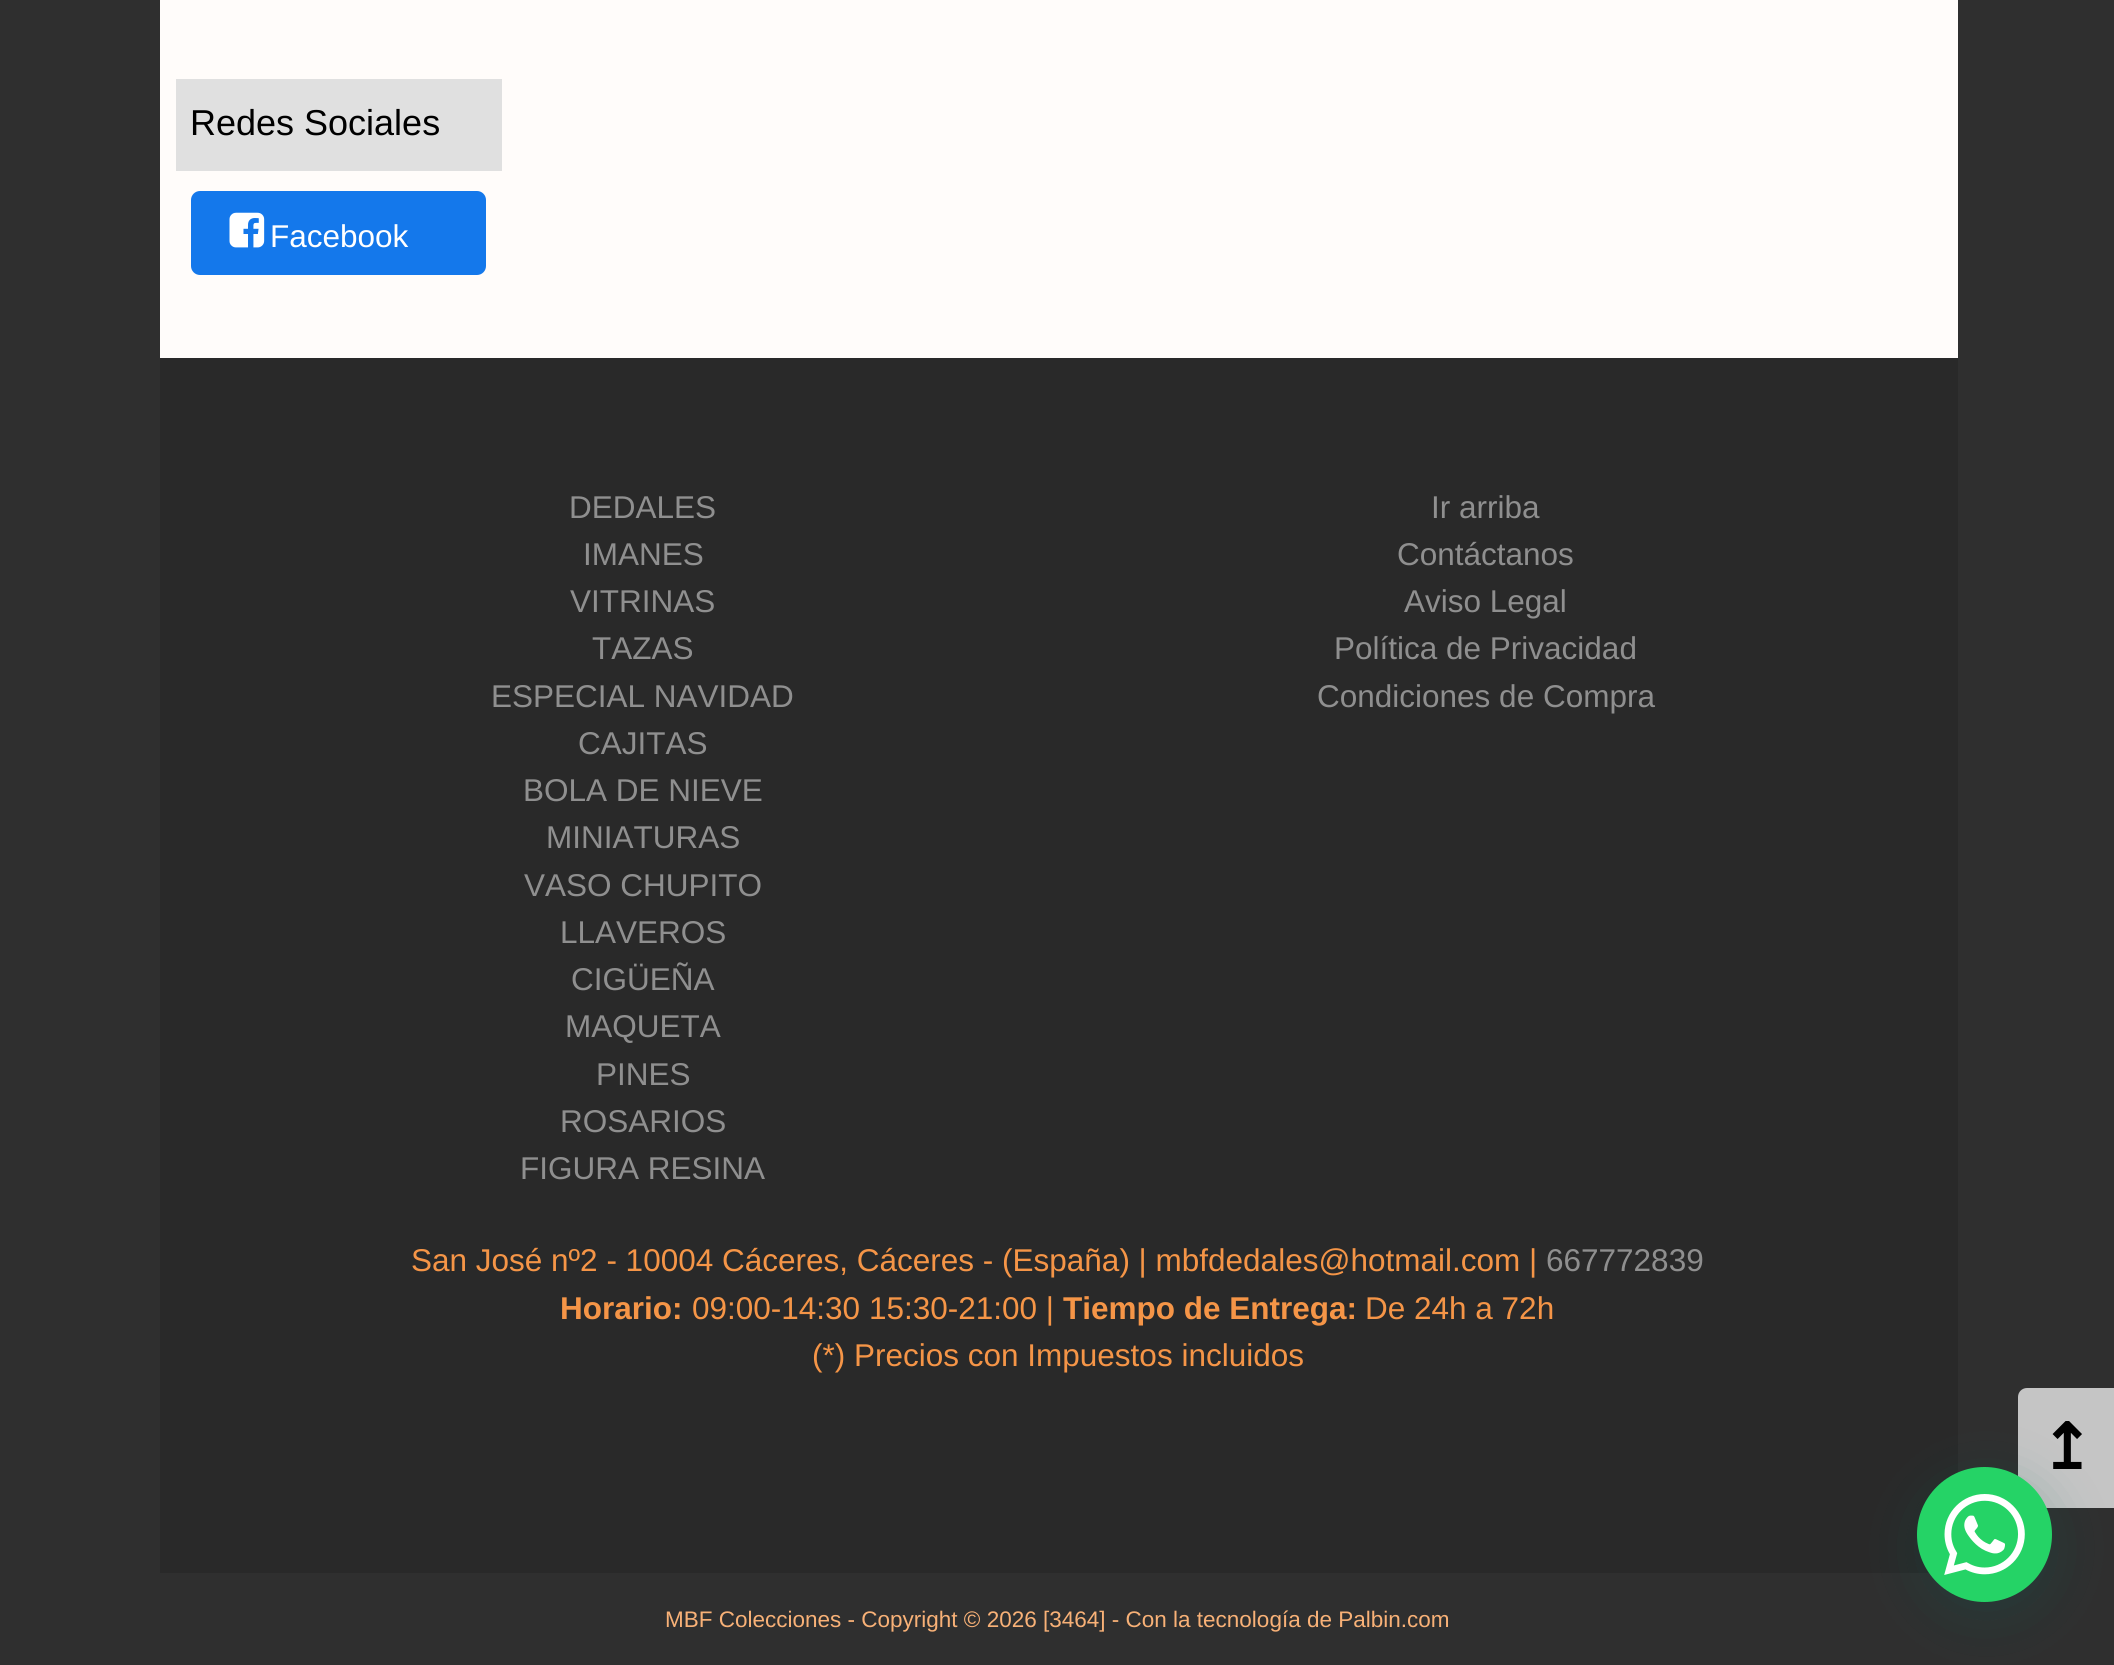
import math
import cairo


def use_color(cr, r, g, b):
  cr.set_source_rgb(r / 255, g / 255, b / 255)

def text(cr, x, y, s, family, size, color, bold=False, italic=False):
  cr.select_font_face(family, cairo.FONT_SLANT_ITALIC if italic else cairo.FONT_SLANT_NORMAL, cairo.FONT_WEIGHT_BOLD if bold else cairo.FONT_WEIGHT_NORMAL)
  cr.set_font_size(size)
  use_color(cr, *color)
  cr.move_to(x, y)
  cr.show_text(s)

def box(cr, x, y, w, h, *color):
  use_color(cr, *color)
  cr.rectangle(x, y, w, h)
  cr.fill()

def round_rect(cr, x, y, w, h, r):
  cr.new_sub_path()
  for i, (u, v) in enumerate([(x + w - r, y + h - r), (x + r, y + h - r), (x + r, y + r), (x + w - r, y + r)]):
    cr.arc(u, v, r, i * math.pi / 2, (i + 1) * math.pi / 2)
  cr.close_path()

def shadow(cr, x, y, w, h, r, blur, alpha):
  cr.push_group_with_content(cairo.CONTENT_ALPHA)
  cr.set_operator(cairo.OPERATOR_SOURCE)
  for i in range(15, -16, -2):
    e = blur * i / 6
    if min(w, h) + 2 * e > 0:
      cr.set_source_rgba(0, 0, 0, alpha * math.erfc((i - 1) / 8.5) / 2)
      round_rect(cr, x - e, y - e, w + 2 * e, h + 2 * e, max(0, min(r + e + blur * .6, min(w, h) / 2 + e)))
      cr.fill()
  cr.mask(cr.pop_group())

def picture(cr, path, x, y, w, h):
  cr.save()
  cr.set_source_surface(cairo.ImageSurface.create_from_png(path), x, y)
  cr.rectangle(x, y, w, h)
  cr.fill()
  cr.restore()

def draw(cr):
  use_color(cr, 47, 47, 47)
  cr.paint()
  box(cr, 160, 0, 1798, 358, 255, 252, 250)
  box(cr, 176, 79, 326, 92, 224, 224, 224)
  use_color(cr, 20, 120, 235)
  round_rect(cr, 191, 191, 295, 84, 9)
  cr.fill()
  picture(cr, "img_01.png", 229, 212, 36, 36)
  box(cr, 160, 358, 1798, 1215, 41, 41, 41)
  use_color(cr, 197, 197, 197)
  cr.new_path()
  cr.move_to(2027, 1388)
  cr.line_to(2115, 1388)
  cr.line_to(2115, 1508)
  cr.line_to(2027, 1508)
  cr.curve_to(2022, 1508, 2018, 1504, 2018, 1499)
  cr.line_to(2018, 1397)
  cr.curve_to(2018, 1392, 2022, 1388, 2027, 1388)
  cr.close_path()
  cr.fill()
  use_color(cr, 7, 94, 84)
  shadow(cr, 1919, 1481, 135, 135, 67.5, 27, 0.24)
  use_color(cr, 37, 211, 102)
  cr.arc(1984.5, 1534.5, 67.5, 0, 2 * math.pi)
  cr.fill()
  picture(cr, "img_02.png", 1944, 1494, 81, 81)
  text(cr, 190, 135, "Redes Sociales", "Liberation Sans", 36, (0, 0, 0))
  text(cr, 270, 247, "Facebook", "Liberation Sans", 31.5, (255, 255, 255))
  text(cr, 569, 518, "DEDALES", "Liberation Sans", 31.5, (143, 143, 143))
  text(cr, 583, 565, "IMANES", "Liberation Sans", 31.5, (143, 143, 143))
  text(cr, 570, 612, "VITRINAS", "Liberation Sans", 31.5, (143, 143, 143))
  text(cr, 592, 659, "TAZAS", "Liberation Sans", 31.5, (143, 143, 143))
  text(cr, 491, 707, "ESPECIAL NAVIDAD", "Liberation Sans", 31.5, (143, 143, 143))
  text(cr, 578, 754, "CAJITAS", "Liberation Sans", 31.5, (143, 143, 143))
  text(cr, 523, 801, "BOLA DE NIEVE", "Liberation Sans", 31.5, (143, 143, 143))
  text(cr, 546, 848, "MINIATURAS", "Liberation Sans", 31.5, (143, 143, 143))
  text(cr, 524, 896, "VASO CHUPITO", "Liberation Sans", 31.5, (143, 143, 143))
  text(cr, 560, 943, "LLAVEROS", "Liberation Sans", 31.5, (143, 143, 143))
  text(cr, 571, 990, "CIGÜEÑA", "Liberation Sans", 31.5, (143, 143, 143))
  text(cr, 565, 1037, "MAQUETA", "Liberation Sans", 31.5, (143, 143, 143))
  text(cr, 596, 1085, "PINES", "Liberation Sans", 31.5, (143, 143, 143))
  text(cr, 560, 1132, "ROSARIOS", "Liberation Sans", 31.5, (143, 143, 143))
  text(cr, 520, 1179, "FIGURA RESINA", "Liberation Sans", 31.5, (143, 143, 143))
  text(cr, 1431, 518, "Ir arriba", "Liberation Sans", 31.5, (143, 143, 143))
  text(cr, 1397, 565, "Contáctanos", "Liberation Sans", 31.5, (143, 143, 143))
  text(cr, 1404, 612, "Aviso Legal", "Liberation Sans", 31.5, (143, 143, 143))
  text(cr, 1334, 659, "Política de Privacidad", "Liberation Sans", 31.5, (143, 143, 143))
  text(cr, 1317, 707, "Condiciones de Compra", "Liberation Sans", 31.5, (143, 143, 143))
  text(cr, 411, 1271, "San José nº2 - 10004 Cáceres, Cáceres - (España) | mbfdedales@hotmail.com |", "Liberation Sans", 31.5, (245, 149, 71))
  text(cr, 1546, 1271, "667772839", "Liberation Sans", 31.5, (143, 143, 143))
  text(cr, 560, 1319, "Horario:", "Liberation Sans", 31.5, (245, 149, 71), bold=True)
  text(cr, 692, 1319, "09:00-14:30 15:30-21:00 |", "Liberation Sans", 31.5, (245, 149, 71))
  text(cr, 1063, 1319, "Tiempo de Entrega:", "Liberation Sans", 31.5, (245, 149, 71), bold=True)
  text(cr, 1365, 1319, "De 24h a 72h", "Liberation Sans", 31.5, (245, 149, 71))
  text(cr, 812, 1366, "(*) Precios con Impuestos incluidos", "Liberation Sans", 31.5, (245, 149, 71))
  text(cr, 665, 1627, "MBF Colecciones - Copyright © 2026 [3464] - Con la tecnología de Palbin.com", "Liberation Sans", 22.5, (248, 177, 119))
  text(cr, 2040, 1469, "↥", "DejaVu Sans", 63, (0, 0, 0), bold=True)


surface = cairo.ImageSurface(cairo.FORMAT_RGB24, 2114, 1665)
cr = cairo.Context(surface)
options = cairo.FontOptions()
options.set_hint_metrics(cairo.HINT_METRICS_OFF)
options.set_hint_style(cairo.HINT_STYLE_NONE)
cr.set_font_options(options)
cr.set_miter_limit(4)
draw(cr)
surface.write_to_png("out.png")
